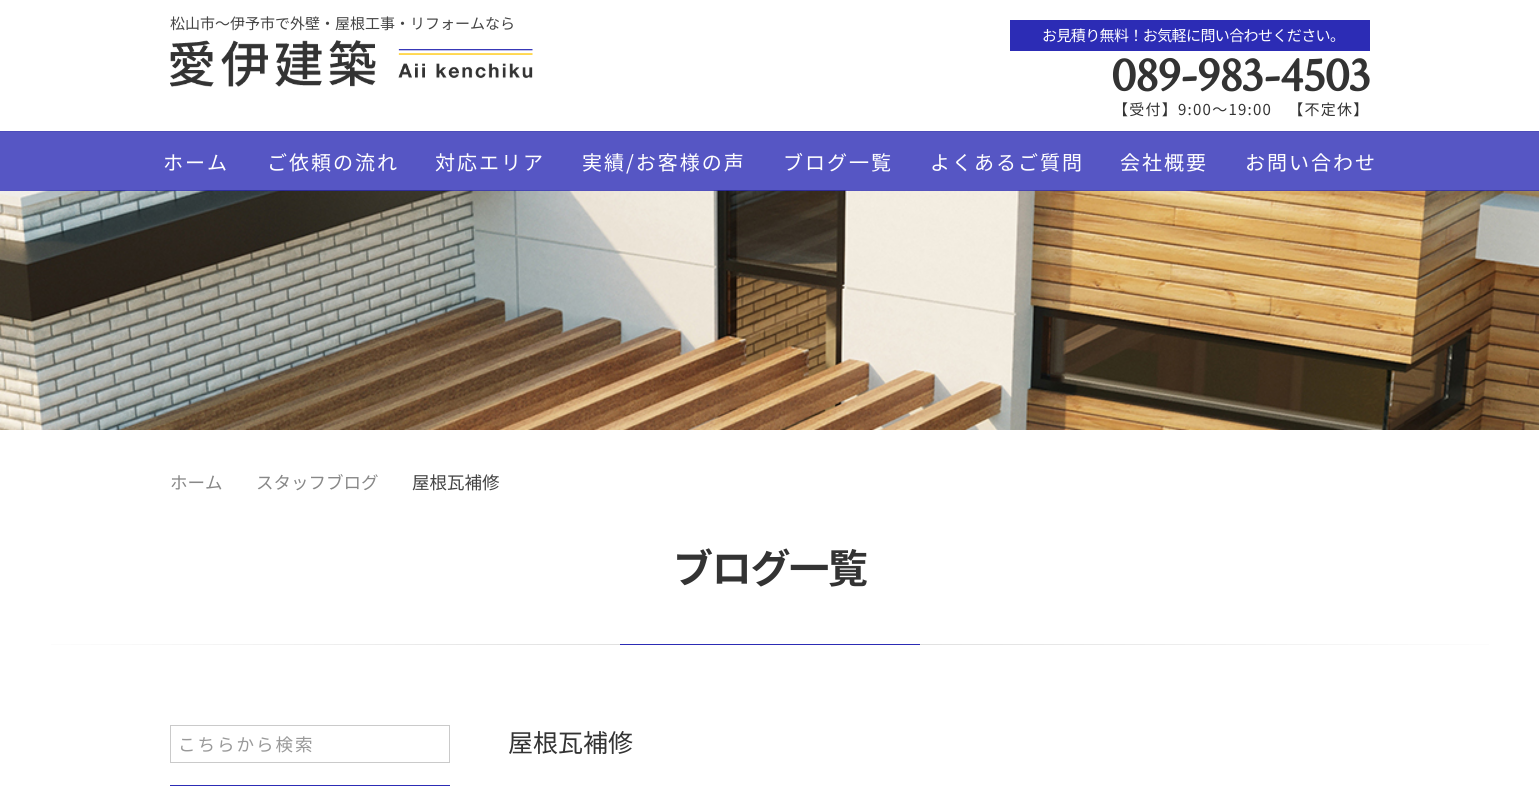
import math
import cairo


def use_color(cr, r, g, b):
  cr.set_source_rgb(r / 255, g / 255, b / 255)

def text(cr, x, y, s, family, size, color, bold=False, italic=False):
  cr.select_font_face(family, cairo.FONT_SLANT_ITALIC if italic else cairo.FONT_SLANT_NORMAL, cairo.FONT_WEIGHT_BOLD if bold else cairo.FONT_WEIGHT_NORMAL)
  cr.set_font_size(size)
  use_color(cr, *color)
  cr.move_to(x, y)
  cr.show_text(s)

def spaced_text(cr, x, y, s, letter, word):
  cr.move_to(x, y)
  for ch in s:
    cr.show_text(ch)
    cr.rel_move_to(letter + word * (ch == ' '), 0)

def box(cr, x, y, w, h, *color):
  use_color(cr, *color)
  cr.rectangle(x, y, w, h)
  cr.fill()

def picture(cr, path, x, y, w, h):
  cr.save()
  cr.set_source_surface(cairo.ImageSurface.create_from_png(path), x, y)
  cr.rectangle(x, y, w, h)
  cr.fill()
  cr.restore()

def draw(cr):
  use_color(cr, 255, 255, 255)
  cr.paint()
  box(cr, 0, 131, 1539, 1, 206, 206, 206)
  picture(cr, "img_01.png", 170, 40, 363, 47)
  box(cr, 1010, 20, 360, 31, 44, 44, 181)
  picture(cr, "img_02.png", 0, 190, 1539, 240)
  cr.set_source_rgba(0.173, 0.173, 0.71, 0.8)
  cr.rectangle(0, 131, 1539, 60)
  cr.fill()
  gradient = cairo.LinearGradient(0, 644, 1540, 644)
  gradient.add_color_stop_rgba(0, 1, 1, 1, 1)
  gradient.add_color_stop_rgba(0.5, 0.851, 0.851, 0.851, 1)
  gradient.add_color_stop_rgba(1, 1, 1, 1, 1)
  cr.set_source(gradient)
  cr.rectangle(51, 644, 1438, 1)
  cr.fill()
  box(cr, 620, 644, 300, 1, 44, 44, 181)
  cr.rectangle(170.5, 725.5, 279, 37)
  use_color(cr, 202, 202, 202)
  cr.set_line_width(1)
  cr.stroke()
  box(cr, 170, 785, 280, 1, 44, 44, 181)
  text(cr, 170, 29, "松山市～伊予市で外壁・屋根工事・リフォームなら", "Noto Sans JP", 15, (68, 68, 68))
  use_color(cr, 255, 255, 255)
  spaced_text(cr, 1042, 41, "お見積り無料！お気軽に問い合わせください。", -0.6, 0)
  cr.select_font_face("Crimson Text", cairo.FONT_SLANT_NORMAL, cairo.FONT_WEIGHT_BOLD)
  cr.set_font_size(50)
  use_color(cr, 51, 51, 51)
  spaced_text(cr, 1111, 91, "089-983-4503", -1.25, 0)
  cr.select_font_face("Noto Sans JP")
  cr.set_font_size(15)
  spaced_text(cr, 1113, 115, "【受付】9:00～19:00　【不定休】", 1.25, 0)
  cr.set_font_size(20)
  use_color(cr, 255, 255, 255)
  spaced_text(cr, 163, 170, "ホーム", 2, 0)
  spaced_text(cr, 267, 170, "ご依頼の流れ", 2, 0)
  spaced_text(cr, 435, 170, "対応エリア", 2, 0)
  spaced_text(cr, 582, 170, "実績/お客様の声", 2, 0)
  spaced_text(cr, 783, 170, "ブログ一覧", 2, 0)
  spaced_text(cr, 930, 170, "よくあるご質問", 2, 0)
  spaced_text(cr, 1120, 170, "会社概要", 2, 0)
  spaced_text(cr, 1245, 170, "お問い合わせ", 2, 0)
  text(cr, 170, 489, "ホーム", "Noto Sans JP", 17.5, (136, 136, 136))
  text(cr, 256, 489, "スタッフブログ", "Noto Sans JP", 17.5, (136, 136, 136))
  text(cr, 412, 489, "屋根瓦補修", "Noto Sans JP", 17.5, (68, 68, 68))
  cr.select_font_face("Noto Sans JP", cairo.FONT_SLANT_NORMAL, cairo.FONT_WEIGHT_BOLD)
  cr.set_font_size(40)
  use_color(cr, 51, 51, 51)
  spaced_text(cr, 673, 583, "ブログ一覧", -1.25, 0)
  cr.select_font_face("Noto Sans JP")
  cr.set_font_size(17.5)
  use_color(cr, 153, 153, 153)
  spaced_text(cr, 178, 751, "こちらから検索", 2, 0)
  text(cr, 508, 752, "屋根瓦補修", "Noto Sans JP", 25, (51, 51, 51))


surface = cairo.ImageSurface(cairo.FORMAT_RGB24, 1539, 786)
cr = cairo.Context(surface)
options = cairo.FontOptions()
options.set_hint_metrics(cairo.HINT_METRICS_OFF)
options.set_hint_style(cairo.HINT_STYLE_NONE)
cr.set_font_options(options)
cr.set_miter_limit(4)
draw(cr)
surface.write_to_png("out.png")
